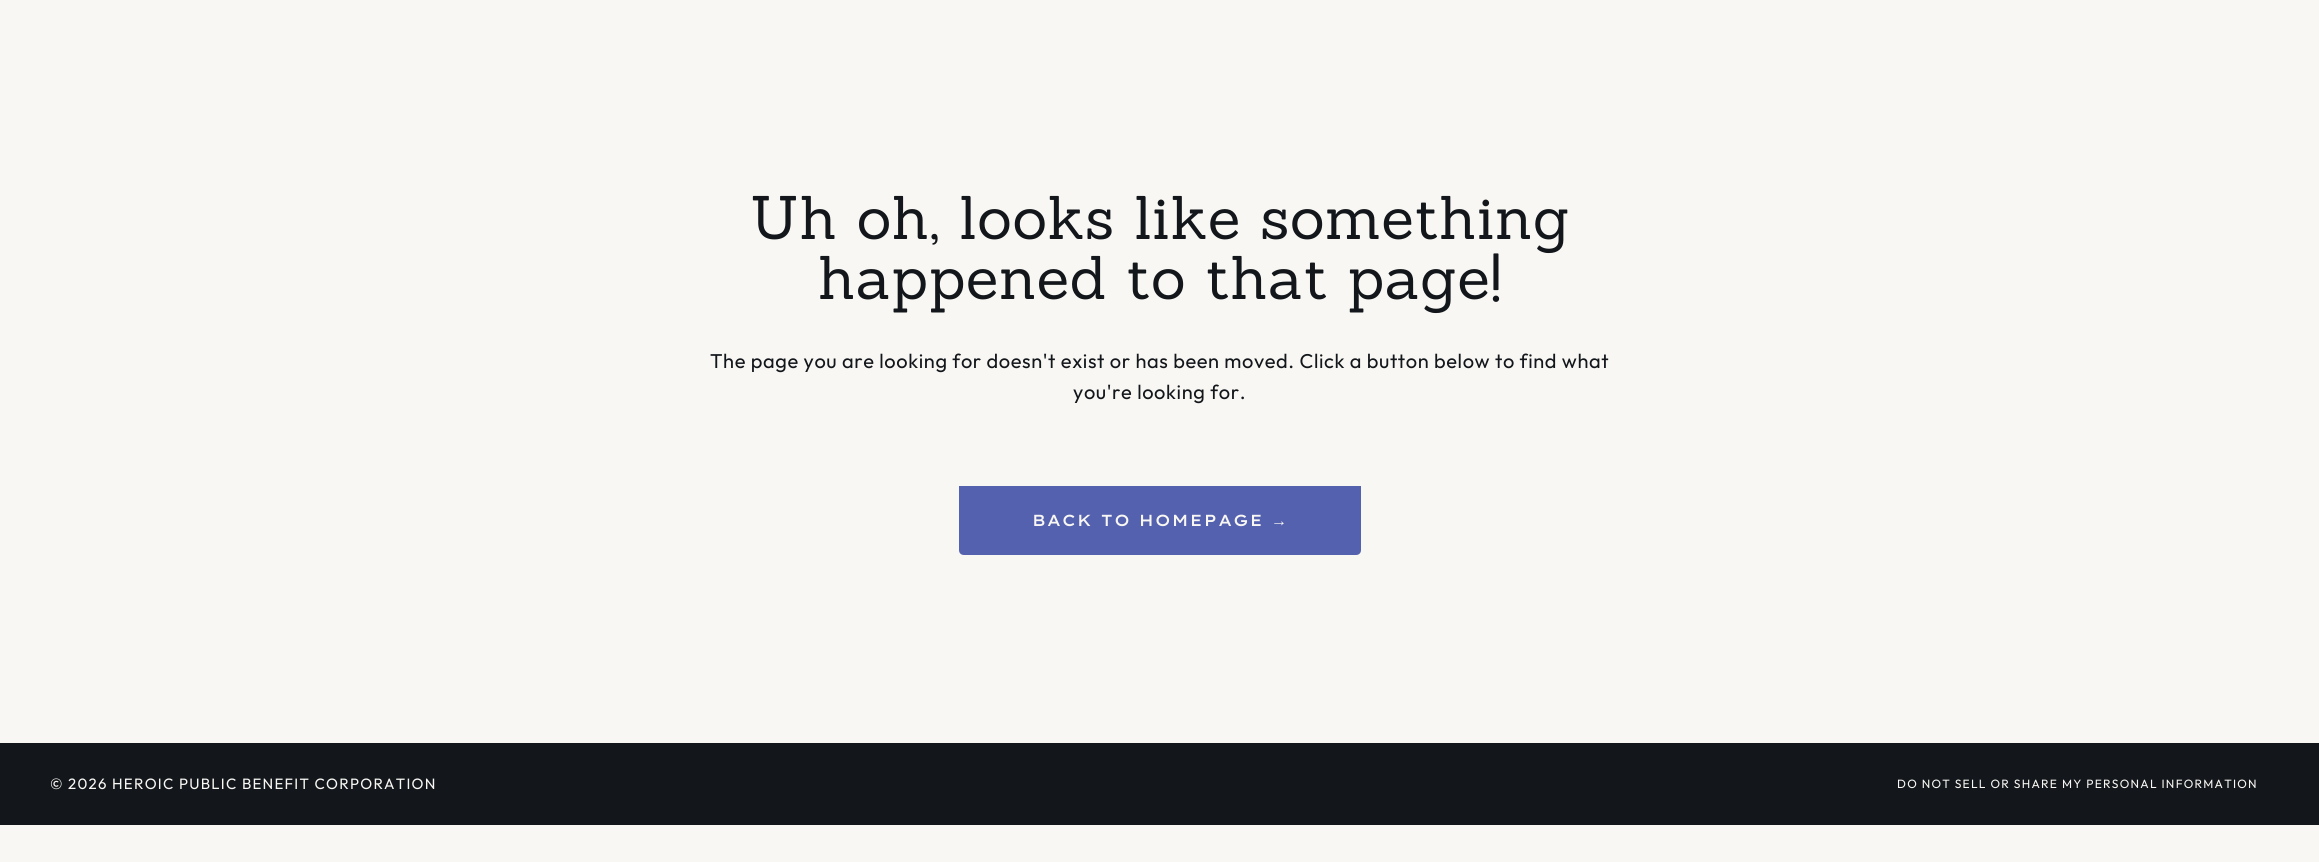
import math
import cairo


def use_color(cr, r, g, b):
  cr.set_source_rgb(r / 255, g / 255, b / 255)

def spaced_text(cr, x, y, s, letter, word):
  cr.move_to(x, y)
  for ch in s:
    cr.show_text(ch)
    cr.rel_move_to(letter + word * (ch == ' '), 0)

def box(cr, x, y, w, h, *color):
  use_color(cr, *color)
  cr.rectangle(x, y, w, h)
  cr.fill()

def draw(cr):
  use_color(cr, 248, 247, 243)
  cr.paint()
  use_color(cr, 84, 97, 174)
  cr.new_path()
  cr.move_to(959, 486)
  cr.line_to(1361, 486)
  cr.line_to(1361, 550)
  cr.curve_to(1361, 553, 1359, 555, 1356, 555)
  cr.line_to(964, 555)
  cr.curve_to(961, 555, 959, 553, 959, 550)
  cr.close_path()
  cr.fill()
  box(cr, 0, 743, 2319, 82, 19, 23, 27)
  cr.select_font_face("Sanchez")
  cr.set_font_size(60)
  spaced_text(cr, 750, 239, "Uh oh, looks like something", 0.6, 0)
  spaced_text(cr, 818, 299, "happened to that page!", 0.6, 0)
  cr.select_font_face("Outfit")
  cr.set_font_size(20)
  spaced_text(cr, 710, 368, "The page you are looking for doesn't exist or has been moved. Click a button below to find what", 0.6, 0)
  spaced_text(cr, 1073, 399, "you're looking for.", 0.6, 0)
  cr.select_font_face("Lexend Giga Medium")
  cr.set_font_size(16)
  use_color(cr, 248, 247, 243)
  spaced_text(cr, 1032, 526, "BACK TO HOMEPAGE", 1.25, 0)
  cr.select_font_face("Liberation Serif")
  spaced_text(cr, 1271, 526, "→", 1.25, 0)
  cr.select_font_face("Outfit")
  cr.set_font_size(15)
  spaced_text(cr, 50, 789, "© 2026 HEROIC PUBLIC BENEFIT CORPORATION", 1.25, 0)
  cr.set_font_size(12)
  spaced_text(cr, 1897, 788, "DO NOT SELL OR SHARE MY PERSONAL INFORMATION", 1.25, 0)


surface = cairo.ImageSurface(cairo.FORMAT_RGB24, 2319, 862)
cr = cairo.Context(surface)
options = cairo.FontOptions()
options.set_hint_metrics(cairo.HINT_METRICS_OFF)
options.set_hint_style(cairo.HINT_STYLE_NONE)
cr.set_font_options(options)
cr.set_miter_limit(4)
draw(cr)
surface.write_to_png("out.png")
